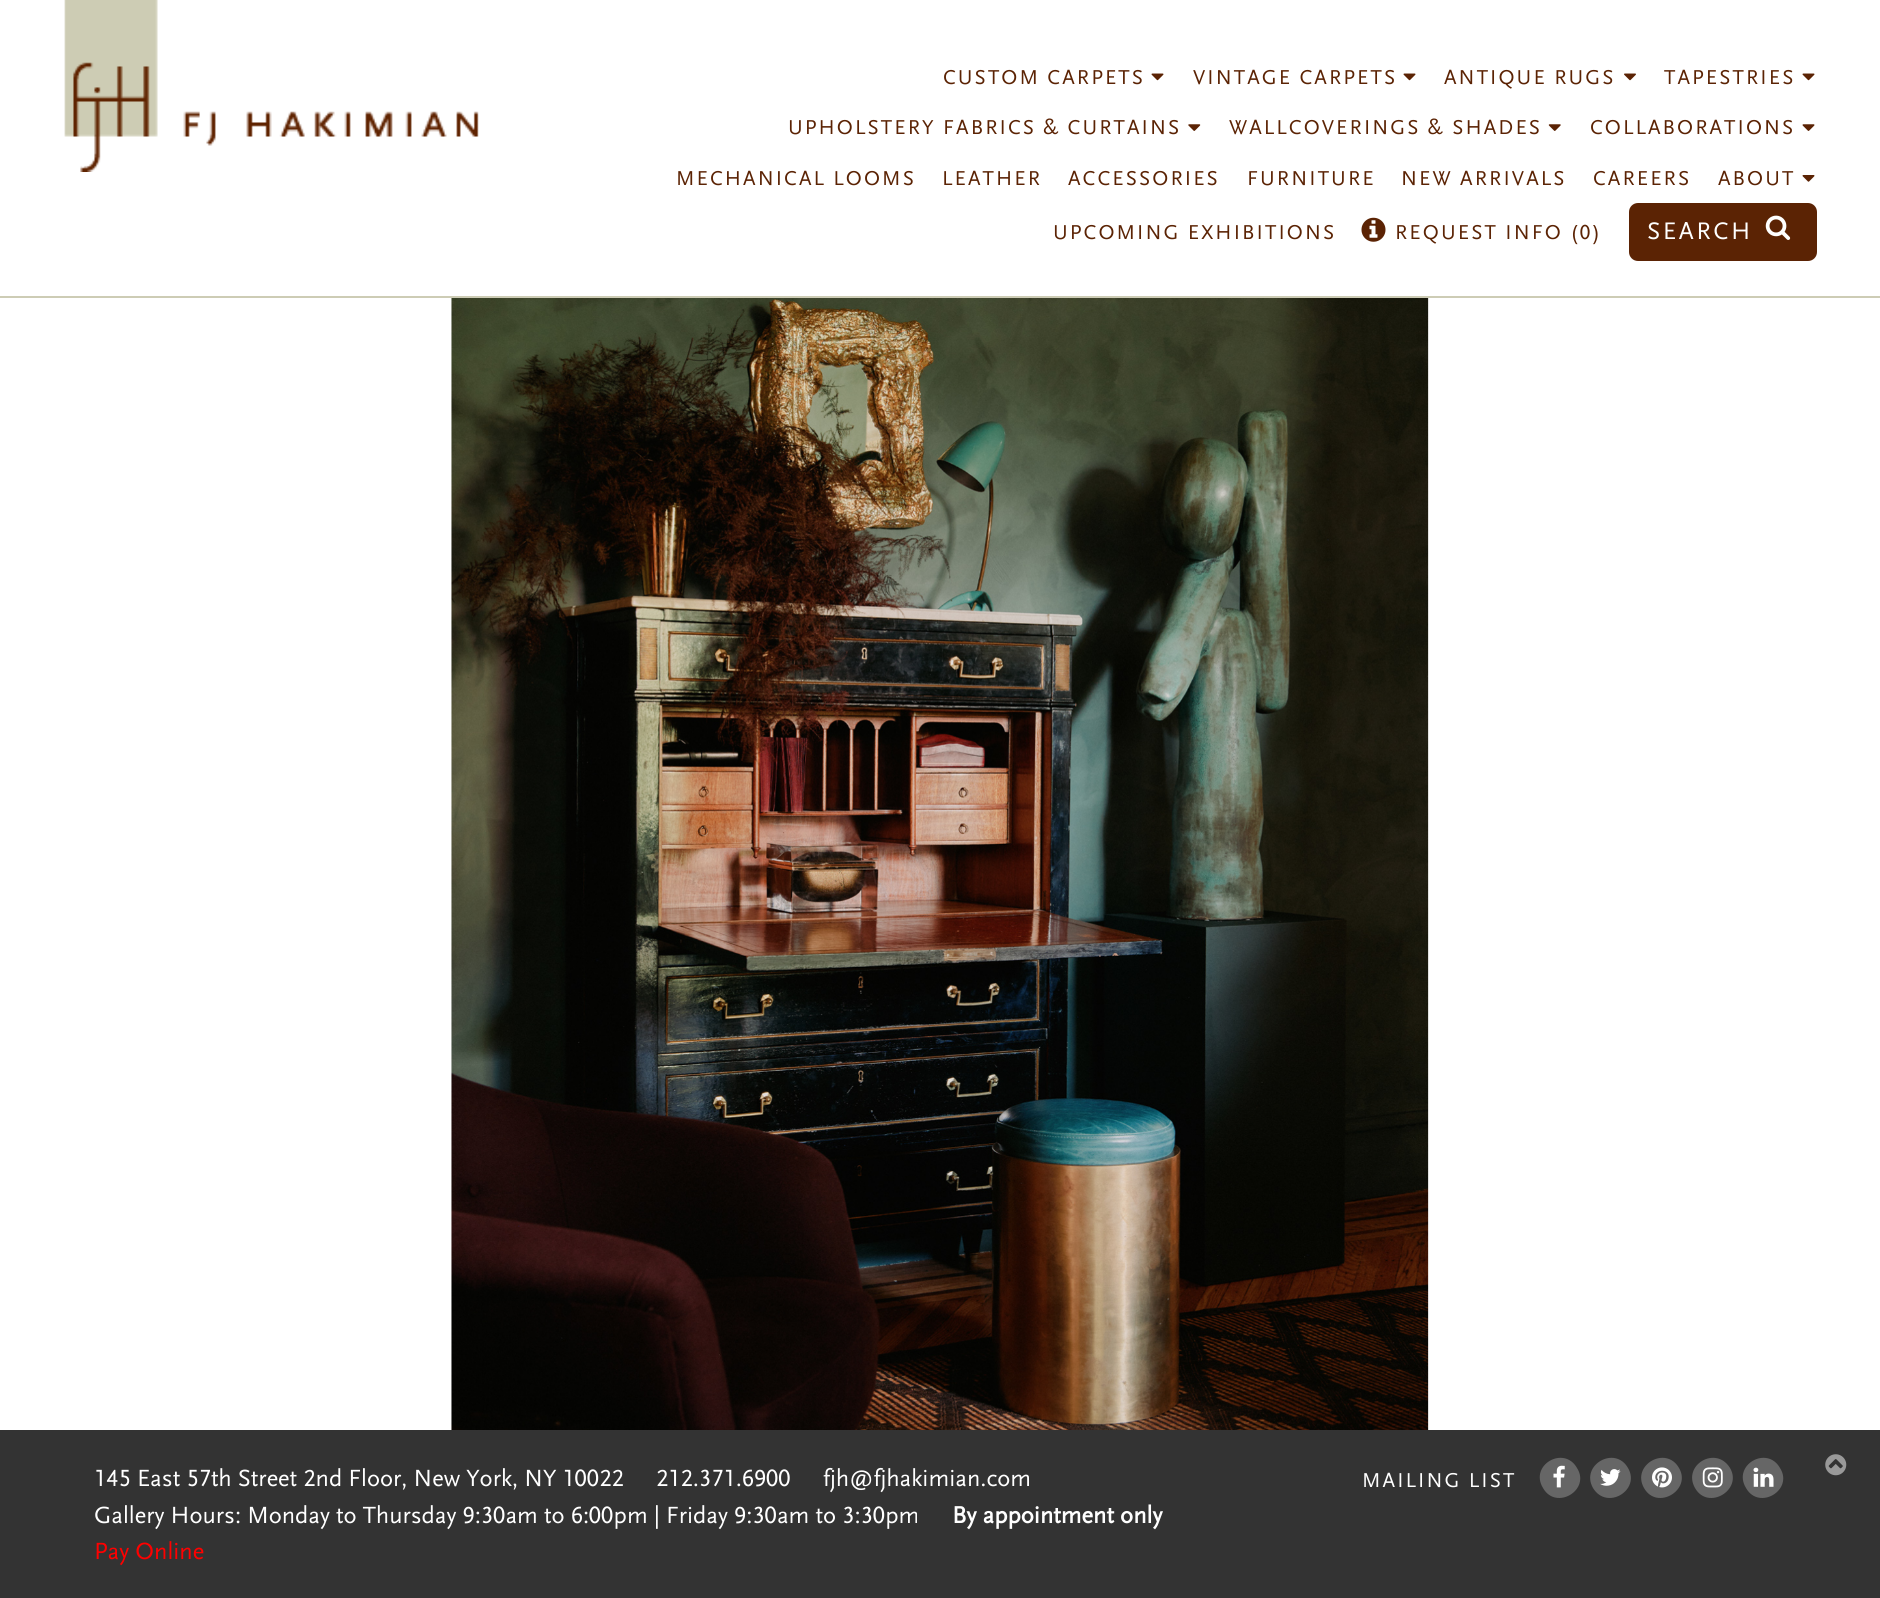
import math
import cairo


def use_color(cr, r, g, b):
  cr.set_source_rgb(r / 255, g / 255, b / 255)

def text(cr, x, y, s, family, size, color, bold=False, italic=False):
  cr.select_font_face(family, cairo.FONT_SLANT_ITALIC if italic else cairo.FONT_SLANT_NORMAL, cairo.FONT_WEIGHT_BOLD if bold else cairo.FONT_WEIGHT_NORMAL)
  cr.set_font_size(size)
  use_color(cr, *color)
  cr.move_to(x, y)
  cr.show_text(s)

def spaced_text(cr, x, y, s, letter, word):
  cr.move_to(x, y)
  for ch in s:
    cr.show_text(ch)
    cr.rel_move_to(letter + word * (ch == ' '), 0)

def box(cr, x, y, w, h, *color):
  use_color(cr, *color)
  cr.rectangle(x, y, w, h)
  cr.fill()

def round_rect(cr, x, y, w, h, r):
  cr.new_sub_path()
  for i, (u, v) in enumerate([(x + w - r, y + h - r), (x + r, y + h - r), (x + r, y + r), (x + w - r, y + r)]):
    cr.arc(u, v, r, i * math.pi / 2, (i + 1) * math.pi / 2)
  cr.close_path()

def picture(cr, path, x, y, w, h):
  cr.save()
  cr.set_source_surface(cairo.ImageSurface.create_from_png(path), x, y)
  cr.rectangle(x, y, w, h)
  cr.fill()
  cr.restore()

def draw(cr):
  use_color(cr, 255, 255, 255)
  cr.paint()
  box(cr, 0, 296, 1880, 2, 205, 204, 181)
  picture(cr, "img_01.png", 64, 0, 94, 172)
  picture(cr, "img_02.png", 183, 111, 296, 35)
  picture(cr, "img_03.png", 1151, 73, 13, 8)
  picture(cr, "img_03.png", 1403, 73, 13, 8)
  picture(cr, "img_04.png", 1624, 73, 12, 8)
  picture(cr, "img_03.png", 1802, 73, 13, 8)
  picture(cr, "img_05.png", 1188, 124, 13, 7)
  picture(cr, "img_06.png", 1548, 124, 13, 7)
  picture(cr, "img_07.png", 1802, 124, 13, 7)
  picture(cr, "img_08.png", 1802, 175, 13, 7)
  picture(cr, "img_09.png", 1361, 217, 25, 25)
  use_color(cr, 91, 35, 4)
  round_rect(cr, 1629, 203, 188, 58, 9)
  cr.fill()
  picture(cr, "img_10.png", 1765, 215, 26, 25)
  picture(cr, "img_11.png", 451, 298, 978, 1132)
  box(cr, 0, 1430, 1880, 168, 51, 51, 51)
  use_color(cr, 102, 102, 102)
  cr.new_path()
  cr.move_to(1577, 1468)
  cr.curve_to(1591, 1490, 1556, 1511, 1543, 1488)
  cr.curve_to(1529, 1465, 1564, 1445, 1577, 1468)
  cr.close_path()
  cr.fill()
  picture(cr, "img_12.png", 1553, 1465, 12, 23)
  cr.new_path()
  cr.move_to(1628, 1468)
  cr.curve_to(1641, 1490, 1607, 1511, 1593, 1488)
  cr.curve_to(1580, 1465, 1615, 1445, 1628, 1468)
  cr.close_path()
  cr.fill()
  picture(cr, "img_13.png", 1600, 1469, 21, 17)
  cr.new_path()
  cr.move_to(1679, 1468)
  cr.curve_to(1692, 1490, 1657, 1511, 1644, 1488)
  cr.curve_to(1631, 1465, 1666, 1445, 1679, 1468)
  cr.close_path()
  cr.fill()
  picture(cr, "img_14.png", 1652, 1467, 20, 21)
  cr.new_path()
  cr.move_to(1730, 1468)
  cr.curve_to(1743, 1490, 1708, 1511, 1695, 1488)
  cr.curve_to(1682, 1465, 1716, 1445, 1730, 1468)
  cr.close_path()
  cr.fill()
  picture(cr, "img_15.png", 1702, 1467, 21, 21)
  cr.new_path()
  cr.move_to(1780, 1468)
  cr.curve_to(1794, 1490, 1759, 1511, 1746, 1488)
  cr.curve_to(1732, 1465, 1767, 1445, 1780, 1468)
  cr.close_path()
  cr.fill()
  picture(cr, "img_16.png", 1753, 1467, 21, 20)
  picture(cr, "img_17.png", 1825, 1454, 22, 22)
  cr.select_font_face("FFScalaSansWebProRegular")
  cr.set_font_size(21)
  use_color(cr, 91, 35, 4)
  spaced_text(cr, 943, 84, "CUSTOM CARPETS", 2.1, 0)
  spaced_text(cr, 1193, 84, "VINTAGE CARPETS", 2.1, 0)
  spaced_text(cr, 1444, 84, "ANTIQUE RUGS", 2.1, 0)
  spaced_text(cr, 1664, 84, "TAPESTRIES", 2.1, 0)
  spaced_text(cr, 788, 134, "UPHOLSTERY FABRICS & CURTAINS", 2.1, 0)
  spaced_text(cr, 1229, 134, "WALLCOVERINGS & SHADES", 2.1, 0)
  spaced_text(cr, 1590, 134, "COLLABORATIONS", 2.1, 0)
  spaced_text(cr, 676, 185, "MECHANICAL LOOMS", 2.1, 0)
  spaced_text(cr, 942, 185, "LEATHER", 2.1, 0)
  spaced_text(cr, 1068, 185, "ACCESSORIES", 2.1, 0)
  spaced_text(cr, 1247, 185, "FURNITURE", 2.1, 0)
  spaced_text(cr, 1401, 185, "NEW ARRIVALS", 2.1, 0)
  spaced_text(cr, 1593, 185, "CAREERS", 2.1, 0)
  spaced_text(cr, 1718, 185, "ABOUT", 2.1, 0)
  spaced_text(cr, 1053, 239, "UPCOMING EXHIBITIONS", 2.1, 0)
  spaced_text(cr, 1395, 239, "REQUEST INFO (0)", 2.1, 0)
  cr.set_font_size(25)
  use_color(cr, 255, 255, 255)
  spaced_text(cr, 1647, 239, "SEARCH", 2.5, 0)
  text(cr, 94, 1486, "145 East 57th Street 2nd Floor, New York, NY 10022", "FFScalaSansWebProRegular", 24.5, (255, 255, 255))
  text(cr, 656, 1486, "212.371.6900", "FFScalaSansWebProRegular", 24.5, (255, 255, 255))
  text(cr, 823, 1486, "fjh@fjhakimian.com", "FFScalaSansWebProRegular", 24.5, (255, 255, 255))
  text(cr, 94, 1523, "Gallery Hours: Monday to Thursday 9:30am to 6:00pm | Friday 9:30am to 3:30pm", "FFScalaSansWebProRegular", 24.5, (255, 255, 255))
  text(cr, 952, 1523, "By appointment only", "FFScalaSansWebProRegular", 24.5, (255, 255, 255), bold=True)
  text(cr, 94, 1559, "Pay Online", "FFScalaSansWebProRegular", 24.5, (255, 0, 0))
  cr.set_font_size(21)
  use_color(cr, 255, 255, 255)
  spaced_text(cr, 1362, 1487, "MAILING LIST", 2.1, 0)


surface = cairo.ImageSurface(cairo.FORMAT_RGB24, 1880, 1598)
cr = cairo.Context(surface)
options = cairo.FontOptions()
options.set_hint_metrics(cairo.HINT_METRICS_OFF)
options.set_hint_style(cairo.HINT_STYLE_NONE)
cr.set_font_options(options)
cr.set_miter_limit(4)
draw(cr)
surface.write_to_png("out.png")
